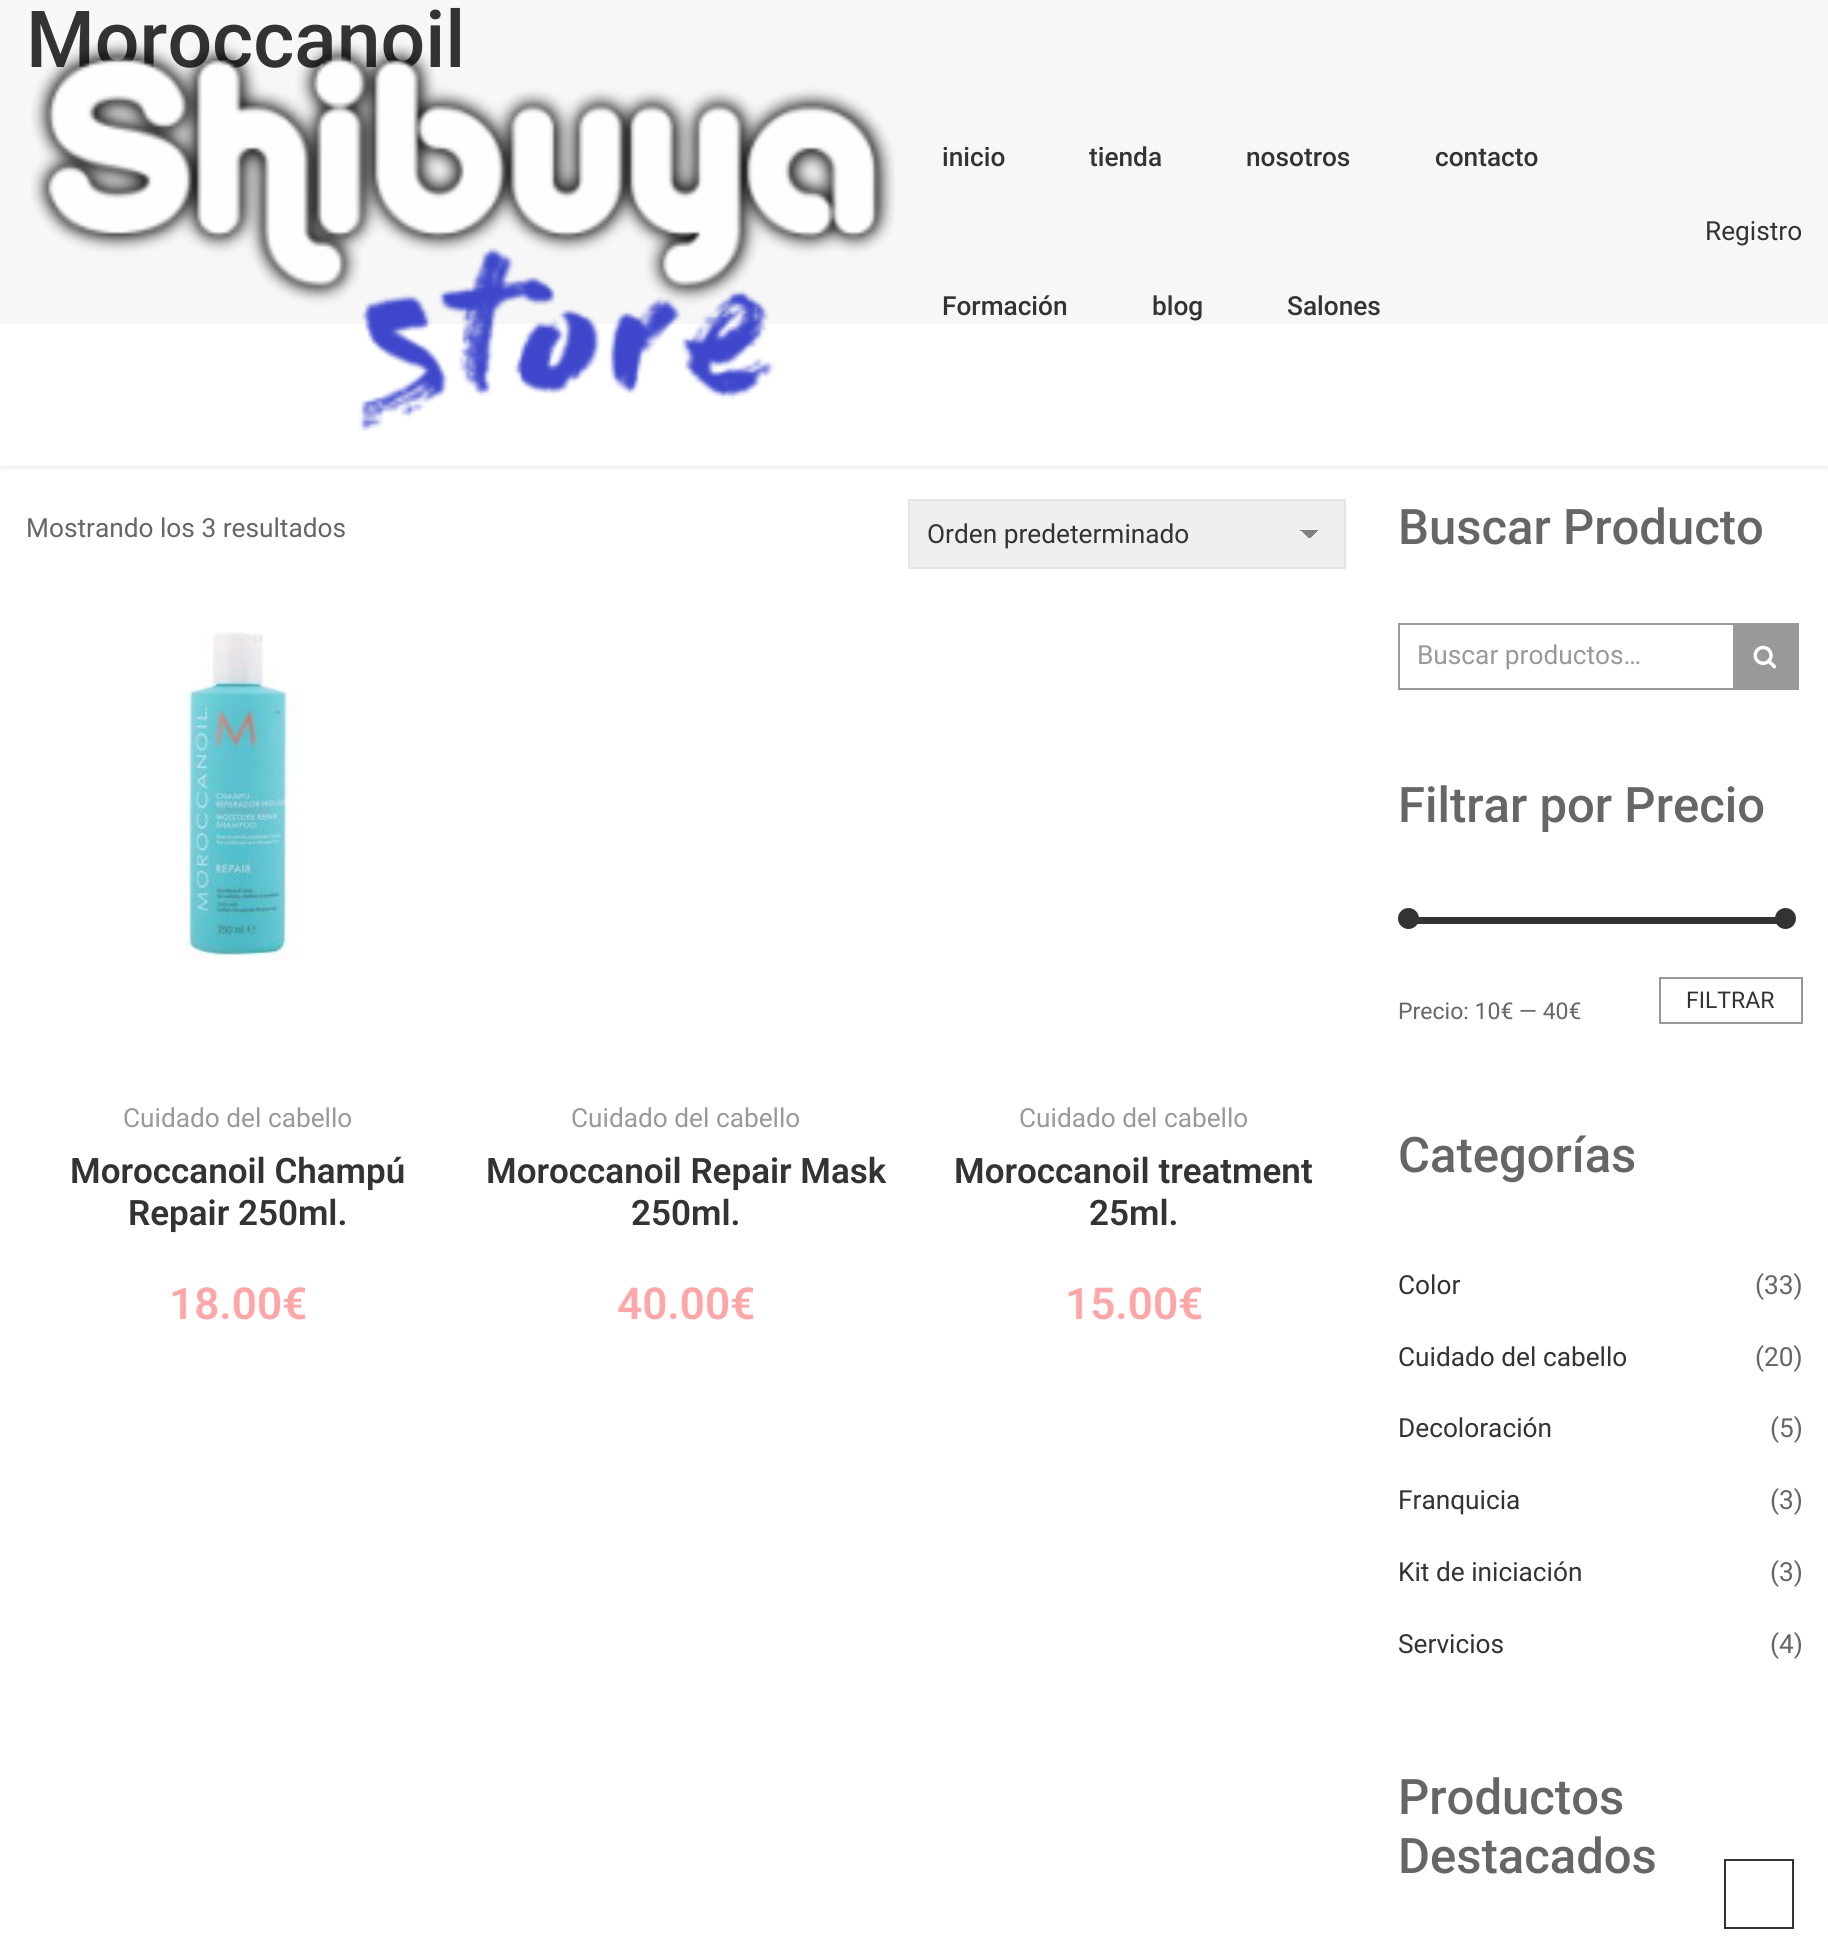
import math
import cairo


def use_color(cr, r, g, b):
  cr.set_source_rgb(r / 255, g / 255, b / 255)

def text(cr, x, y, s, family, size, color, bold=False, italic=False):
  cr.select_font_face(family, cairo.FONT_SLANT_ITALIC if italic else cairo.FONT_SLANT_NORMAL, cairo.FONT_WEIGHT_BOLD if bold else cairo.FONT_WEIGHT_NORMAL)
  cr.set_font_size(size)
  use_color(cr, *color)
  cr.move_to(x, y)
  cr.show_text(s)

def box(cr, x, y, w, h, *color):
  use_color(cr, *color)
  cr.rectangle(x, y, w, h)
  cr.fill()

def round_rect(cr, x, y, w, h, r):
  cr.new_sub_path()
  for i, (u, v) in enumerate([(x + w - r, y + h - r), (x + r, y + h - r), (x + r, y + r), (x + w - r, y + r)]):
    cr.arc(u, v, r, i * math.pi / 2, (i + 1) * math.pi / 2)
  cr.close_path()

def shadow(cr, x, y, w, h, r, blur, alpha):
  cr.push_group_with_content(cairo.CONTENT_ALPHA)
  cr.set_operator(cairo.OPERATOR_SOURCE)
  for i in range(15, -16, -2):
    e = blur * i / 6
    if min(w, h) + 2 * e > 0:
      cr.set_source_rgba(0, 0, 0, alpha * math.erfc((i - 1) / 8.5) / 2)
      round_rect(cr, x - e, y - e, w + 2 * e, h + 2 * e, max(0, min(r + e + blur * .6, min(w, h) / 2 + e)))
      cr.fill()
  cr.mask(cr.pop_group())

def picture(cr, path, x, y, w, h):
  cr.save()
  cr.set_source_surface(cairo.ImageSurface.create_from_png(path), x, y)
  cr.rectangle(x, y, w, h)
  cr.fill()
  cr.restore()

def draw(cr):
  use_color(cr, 255, 255, 255)
  cr.paint()
  box(cr, 0, 0, 1828, 324, 247, 247, 247)
  box(cr, 910, 501, 434, 66, 239, 239, 239)
  gradient = cairo.LinearGradient(1309, 530, 1318, 539)
  gradient.add_color_stop_rgba(0.5, 0.502, 0.502, 0.502, 1)
  gradient.add_color_stop_rgba(0.5, 0.937, 0.937, 0.937, 1)
  cr.set_source(gradient)
  cr.rectangle(1309, 530, 9, 8)
  cr.fill()
  gradient = cairo.LinearGradient(1300, 539, 1309, 530)
  gradient.add_color_stop_rgba(0.5, 0.937, 0.937, 0.937, 1)
  gradient.add_color_stop_rgba(0.5, 0.502, 0.502, 0.502, 1)
  cr.set_source(gradient)
  cr.rectangle(1300, 530, 9, 8)
  cr.fill()
  cr.rectangle(909, 500, 436, 68)
  use_color(cr, 229, 229, 229)
  cr.stroke()
  picture(cr, "img_01.png", 184, 632, 114, 328)
  box(cr, 1398, 623, 335, 2, 153, 153, 153)
  box(cr, 1398, 688, 335, 2, 153, 153, 153)
  box(cr, 1398, 623, 2, 67, 153, 153, 153)
  box(cr, 1733, 623, 66, 67, 153, 153, 153)
  picture(cr, "img_02.png", 1753, 645, 24, 24)
  box(cr, 1412, 917, 365, 7, 51, 51, 51)
  cr.arc(1408.5, 918.5, 10.5, 0, 2 * math.pi)
  cr.fill()
  cr.arc(1785.5, 918.5, 10.5, 0, 2 * math.pi)
  cr.fill()
  cr.rectangle(1660, 978, 142, 45)
  use_color(cr, 153, 153, 153)
  cr.stroke()
  cr.save()
  cr.set_fill_rule(cairo.FILL_RULE_EVEN_ODD)
  cr.new_path()
  cr.move_to(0, 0)
  cr.line_to(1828, 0)
  cr.line_to(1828, 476)
  cr.line_to(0, 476)
  cr.close_path()
  cr.move_to(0, 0)
  cr.line_to(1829, 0)
  cr.line_to(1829, 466)
  cr.line_to(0, 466)
  cr.close_path()
  cr.clip()
  use_color(cr, 0, 0, 0)
  shadow(cr, 0, 2, 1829, 465, 0, 2.5, 0.1)
  cr.restore()
  cr.rectangle(1725, 1860, 68, 68)
  use_color(cr, 51, 51, 51)
  cr.stroke()
  text(cr, 26, 67, "Moroccanoil", "Roboto Medium", 78.75, (51, 51, 51))
  text(cr, 26, 537, "Mostrando los 3 resultados", "Roboto", 26.25, (102, 102, 102))
  text(cr, 927, 543, "Orden predeterminado", "Roboto", 26.25, (51, 51, 51))
  text(cr, 123, 1127, "Cuidado del cabello", "Roboto", 26.25, (153, 153, 153))
  text(cr, 70, 1183, "Moroccanoil Champú", "Roboto SemiBold", 35, (51, 51, 51))
  text(cr, 128, 1225, "Repair 250ml.", "Roboto SemiBold", 35, (51, 51, 51))
  text(cr, 169, 1319, "18.00€", "Roboto SemiBold", 44, (255, 166, 168))
  text(cr, 571, 1127, "Cuidado del cabello", "Roboto", 26.25, (153, 153, 153))
  text(cr, 486, 1183, "Moroccanoil Repair Mask", "Roboto SemiBold", 35, (51, 51, 51))
  text(cr, 631, 1225, "250ml.", "Roboto SemiBold", 35, (51, 51, 51))
  text(cr, 617, 1319, "40.00€", "Roboto SemiBold", 44, (255, 166, 168))
  text(cr, 1019, 1127, "Cuidado del cabello", "Roboto", 26.25, (153, 153, 153))
  text(cr, 954, 1183, "Moroccanoil treatment", "Roboto SemiBold", 35, (51, 51, 51))
  text(cr, 1089, 1225, "25ml.", "Roboto SemiBold", 35, (51, 51, 51))
  text(cr, 1065, 1319, "15.00€", "Roboto SemiBold", 44, (255, 166, 168))
  text(cr, 1398, 544, "Buscar Producto", "Roboto Medium", 49, (102, 102, 102))
  text(cr, 1417, 664, "Buscar productos…", "Roboto", 26.25, (153, 153, 153))
  text(cr, 1398, 822, "Filtrar por Precio", "Roboto Medium", 49, (102, 102, 102))
  text(cr, 1686, 1008, "FILTRAR", "Roboto", 23, (51, 51, 51))
  text(cr, 1398, 1019, "Precio: 10€ — 40€", "Roboto", 23, (102, 102, 102))
  text(cr, 1398, 1172, "Categorías", "Roboto Medium", 49, (102, 102, 102))
  text(cr, 1398, 1294, "Color", "Roboto", 26.25, (51, 51, 51))
  text(cr, 1755, 1294, "(33)", "Roboto", 26.25, (102, 102, 102))
  text(cr, 1398, 1366, "Cuidado del cabello", "Roboto", 26.25, (51, 51, 51))
  text(cr, 1755, 1366, "(20)", "Roboto", 26.25, (102, 102, 102))
  text(cr, 1398, 1437, "Decoloración", "Roboto", 26.25, (51, 51, 51))
  text(cr, 1770, 1437, "(5)", "Roboto", 26.25, (102, 102, 102))
  text(cr, 1398, 1509, "Franquicia", "Roboto", 26.25, (51, 51, 51))
  text(cr, 1770, 1509, "(3)", "Roboto", 26.25, (102, 102, 102))
  text(cr, 1398, 1581, "Kit de iniciación", "Roboto", 26.25, (51, 51, 51))
  text(cr, 1770, 1581, "(3)", "Roboto", 26.25, (102, 102, 102))
  text(cr, 1398, 1653, "Servicios", "Roboto", 26.25, (51, 51, 51))
  text(cr, 1770, 1653, "(4)", "Roboto", 26.25, (102, 102, 102))
  text(cr, 1398, 1814, "Productos", "Roboto Medium", 49, (102, 102, 102))
  text(cr, 1398, 1873, "Destacados", "Roboto Medium", 49, (102, 102, 102))
  picture(cr, "img_03.png", 31, 40, 864, 391)
  text(cr, 942, 166, "inicio", "Roboto Medium", 26.25, (51, 51, 51))
  text(cr, 1089, 166, "tienda", "Roboto Medium", 26.25, (51, 51, 51))
  text(cr, 1246, 166, "nosotros", "Roboto Medium", 26.25, (51, 51, 51))
  text(cr, 1435, 166, "contacto", "Roboto Medium", 26.25, (51, 51, 51))
  text(cr, 942, 315, "Formación", "Roboto Medium", 26.25, (51, 51, 51))
  text(cr, 1152, 315, "blog", "Roboto Medium", 26.25, (51, 51, 51))
  text(cr, 1287, 315, "Salones", "Roboto Medium", 26.25, (51, 51, 51))
  text(cr, 1705, 240, "Registro", "Roboto", 26.25, (51, 51, 51))


surface = cairo.ImageSurface(cairo.FORMAT_RGB24, 1828, 1954)
cr = cairo.Context(surface)
options = cairo.FontOptions()
options.set_hint_metrics(cairo.HINT_METRICS_OFF)
options.set_hint_style(cairo.HINT_STYLE_NONE)
cr.set_font_options(options)
cr.set_miter_limit(4)
draw(cr)
surface.write_to_png("out.png")
